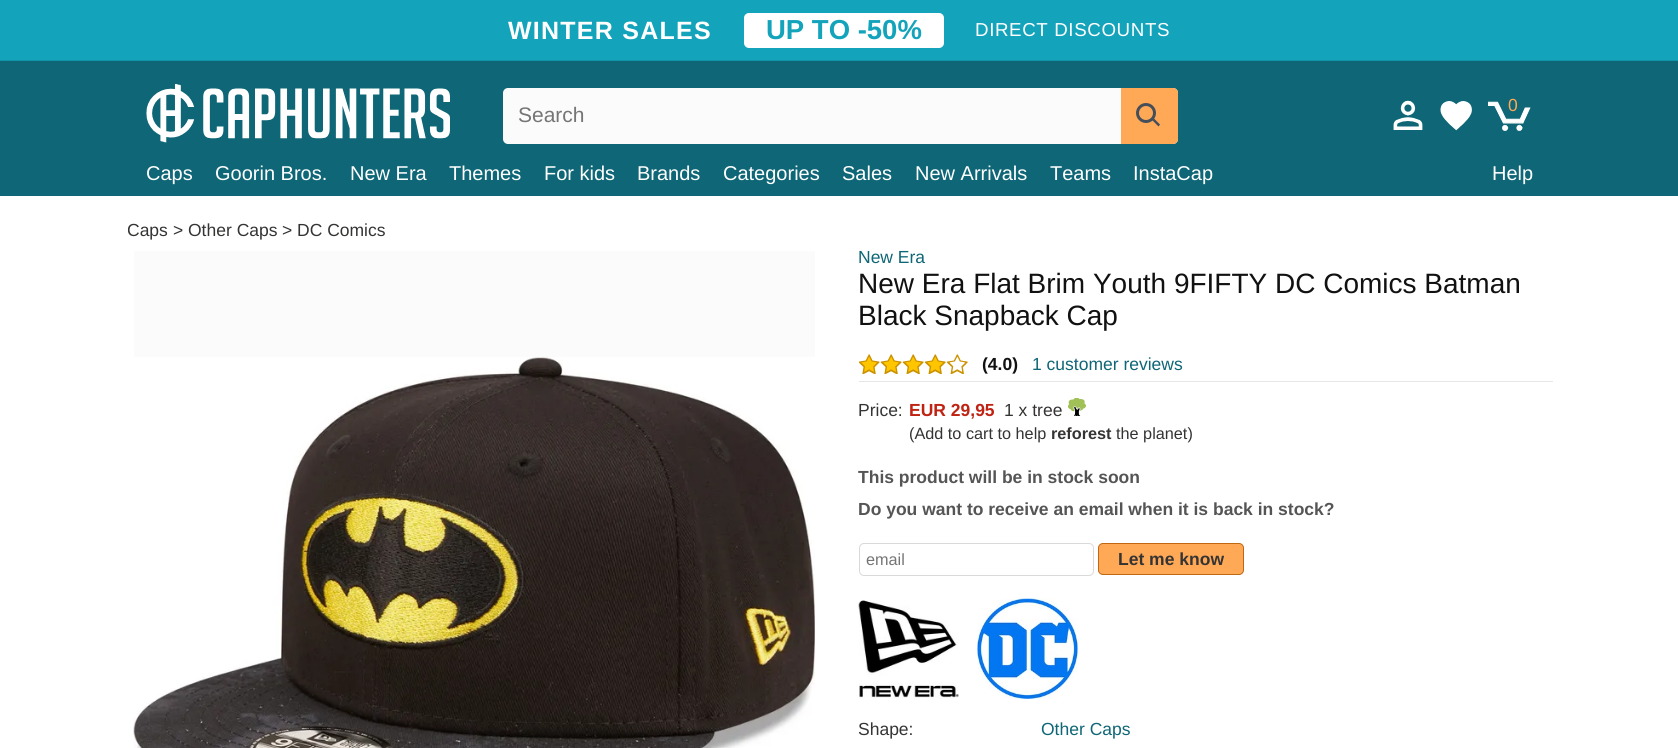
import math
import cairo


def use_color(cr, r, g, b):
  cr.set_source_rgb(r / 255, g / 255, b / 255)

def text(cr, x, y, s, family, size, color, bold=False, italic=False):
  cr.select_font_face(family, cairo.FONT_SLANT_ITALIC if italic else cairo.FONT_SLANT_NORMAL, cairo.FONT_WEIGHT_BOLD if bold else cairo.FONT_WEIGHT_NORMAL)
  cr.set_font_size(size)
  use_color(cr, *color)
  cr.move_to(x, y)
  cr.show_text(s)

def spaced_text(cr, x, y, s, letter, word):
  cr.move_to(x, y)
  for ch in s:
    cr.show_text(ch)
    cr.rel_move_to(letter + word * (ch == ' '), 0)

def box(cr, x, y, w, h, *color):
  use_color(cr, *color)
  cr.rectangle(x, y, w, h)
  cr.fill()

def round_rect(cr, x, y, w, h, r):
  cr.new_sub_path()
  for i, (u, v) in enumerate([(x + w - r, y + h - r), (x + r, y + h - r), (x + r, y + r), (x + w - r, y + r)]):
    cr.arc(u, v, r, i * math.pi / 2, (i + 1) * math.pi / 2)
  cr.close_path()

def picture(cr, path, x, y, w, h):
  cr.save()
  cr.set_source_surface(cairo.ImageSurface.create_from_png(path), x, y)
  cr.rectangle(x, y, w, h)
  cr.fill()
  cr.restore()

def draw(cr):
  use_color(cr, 255, 255, 255)
  cr.paint()
  box(cr, 0, 0, 1678, 60, 19, 163, 186)
  box(cr, 0, 60, 1678, 1, 17, 147, 167)
  use_color(cr, 255, 255, 255)
  round_rect(cr, 744, 13, 200, 35, 5)
  cr.fill()
  box(cr, 0, 61, 1678, 135, 14, 102, 118)
  picture(cr, "img_01.png", 146, 84, 304, 59)
  use_color(cr, 251, 251, 251)
  round_rect(cr, 503, 88, 675, 56, 5)
  cr.fill()
  use_color(cr, 255, 169, 87)
  cr.new_path()
  cr.move_to(1121, 88)
  cr.line_to(1173, 88)
  cr.curve_to(1176, 88, 1178, 90, 1178, 93)
  cr.line_to(1178, 139)
  cr.curve_to(1178, 142, 1176, 144, 1173, 144)
  cr.line_to(1121, 144)
  cr.close_path()
  cr.fill()
  cr.arc(1146, 113, 8.5, 0, 2 * math.pi)
  use_color(cr, 69, 79, 89)
  cr.set_line_width(3)
  cr.stroke()
  cr.new_path()
  cr.move_to(1153, 117.5)
  cr.line_to(1160, 124.5)
  cr.line_to(1158.5, 126.5)
  cr.line_to(1151, 119)
  cr.close_path()
  cr.fill()
  picture(cr, "img_02.png", 1393, 100, 30, 30)
  picture(cr, "img_03.png", 1440, 101, 32, 30)
  picture(cr, "img_04.png", 1488, 101, 43, 31)
  box(cr, 134, 251, 681, 106, 251, 251, 251)
  picture(cr, "img_05.png", 133, 357, 682, 391)
  picture(cr, "img_06.png", 859, 354, 109, 20)
  box(cr, 859, 381, 694, 1, 230, 230, 230)
  picture(cr, "img_07.png", 1068, 398, 18, 18)
  round_rect(cr, 859.5, 543.5, 234, 32, 4.5)
  use_color(cr, 217, 217, 217)
  cr.set_line_width(1)
  cr.stroke()
  use_color(cr, 255, 169, 87)
  round_rect(cr, 1098.5, 543.5, 145, 31, 4.5)
  cr.fill_preserve()
  use_color(cr, 191, 103, 19)
  cr.stroke()
  picture(cr, "img_08.png", 858, 600, 101, 99)
  picture(cr, "img_09.png", 977, 598, 101, 101)
  cr.select_font_face("Liberation Sans", cairo.FONT_SLANT_NORMAL, cairo.FONT_WEIGHT_BOLD)
  cr.set_font_size(25)
  use_color(cr, 255, 255, 255)
  spaced_text(cr, 508, 39, "WINTER SALES", 1.25, 0)
  text(cr, 766, 39, "UP TO -50%", "Liberation Sans", 27.5, (19, 163, 186), bold=True)
  cr.select_font_face("Liberation Sans")
  cr.set_font_size(18.75)
  use_color(cr, 255, 255, 255)
  spaced_text(cr, 975, 36, "DIRECT DISCOUNTS", 0.6, 0)
  text(cr, 518, 122, "Search", "Liberation Sans", 21, (117, 117, 117))
  text(cr, 1508, 111, "0", "Liberation Sans", 17.5, (255, 169, 87))
  text(cr, 146, 180, "Caps", "Liberation Sans", 20, (255, 255, 255))
  text(cr, 215, 180, "Goorin Bros.", "Liberation Sans", 20, (255, 255, 255))
  text(cr, 350, 180, "New Era", "Liberation Sans", 20, (255, 255, 255))
  text(cr, 449, 180, "Themes", "Liberation Sans", 20, (255, 255, 255))
  text(cr, 544, 180, "For kids", "Liberation Sans", 20, (255, 255, 255))
  text(cr, 637, 180, "Brands", "Liberation Sans", 20, (255, 255, 255))
  text(cr, 723, 180, "Categories", "Liberation Sans", 20, (255, 255, 255))
  text(cr, 842, 180, "Sales", "Liberation Sans", 20, (255, 255, 255))
  text(cr, 915, 180, "New Arrivals", "Liberation Sans", 20, (255, 255, 255))
  text(cr, 1050, 180, "Teams", "Liberation Sans", 20, (255, 255, 255))
  text(cr, 1133, 180, "InstaCap", "Liberation Sans", 20, (255, 255, 255))
  text(cr, 1492, 180, "Help", "Liberation Sans", 20, (255, 255, 255))
  cr.save()
  round_rect(cr, 128, 215, 1425, 30, 5)
  cr.clip()
  text(cr, 127, 236, "Caps", "Liberation Sans", 17.5, (53, 52, 51))
  cr.restore()
  text(cr, 173, 236, ">", "Liberation Sans", 17.5, (53, 52, 51))
  text(cr, 188, 236, "Other Caps", "Liberation Sans", 17.5, (53, 52, 51))
  text(cr, 282, 236, ">", "Liberation Sans", 17.5, (53, 52, 51))
  text(cr, 297, 236, "DC Comics", "Liberation Sans", 17.5, (53, 52, 51))
  text(cr, 858, 263, "New Era", "Liberation Sans", 17.5, (14, 102, 118))
  text(cr, 858, 293, "New Era Flat Brim Youth 9FIFTY DC Comics Batman", "Liberation Sans", 28, (17, 17, 17))
  text(cr, 858, 325, "Black Snapback Cap", "Liberation Sans", 28, (17, 17, 17))
  text(cr, 982, 370, "(4.0)", "Liberation Sans", 17.5, (17, 17, 17), bold=True)
  text(cr, 1032, 370, "1 customer reviews", "Liberation Sans", 17.5, (14, 102, 118))
  text(cr, 858, 416, "Price:", "Liberation Sans", 17.5, (53, 52, 51))
  text(cr, 909, 416, "EUR 29,95", "Liberation Sans", 17.5, (191, 35, 19), bold=True)
  text(cr, 1004, 416, "1 x tree", "Liberation Sans", 17.5, (53, 52, 51))
  text(cr, 909, 439, "(Add to cart to help", "Liberation Sans", 16.25, (53, 52, 51))
  text(cr, 1051, 439, "reforest", "Liberation Sans", 16.25, (53, 52, 51), bold=True)
  text(cr, 1116, 439, "the planet)", "Liberation Sans", 16.25, (53, 52, 51))
  text(cr, 858, 483, "This product will be in stock soon", "Liberation Sans", 17.5, (85, 85, 85), bold=True)
  text(cr, 858, 515, "Do you want to receive an email when it is back in stock?", "Liberation Sans", 17.5, (85, 85, 85), bold=True)
  text(cr, 866, 565, "email", "Liberation Sans", 16.25, (117, 117, 117))
  text(cr, 1118, 565, "Let me know", "Liberation Sans", 17.5, (53, 52, 51), bold=True)
  text(cr, 858, 735, "Shape:", "Liberation Sans", 17.5, (53, 52, 51))
  text(cr, 1041, 735, "Other Caps", "Liberation Sans", 17.5, (14, 102, 118))


surface = cairo.ImageSurface(cairo.FORMAT_RGB24, 1678, 748)
cr = cairo.Context(surface)
options = cairo.FontOptions()
options.set_hint_metrics(cairo.HINT_METRICS_OFF)
options.set_hint_style(cairo.HINT_STYLE_NONE)
cr.set_font_options(options)
cr.set_miter_limit(4)
draw(cr)
surface.write_to_png("out.png")
